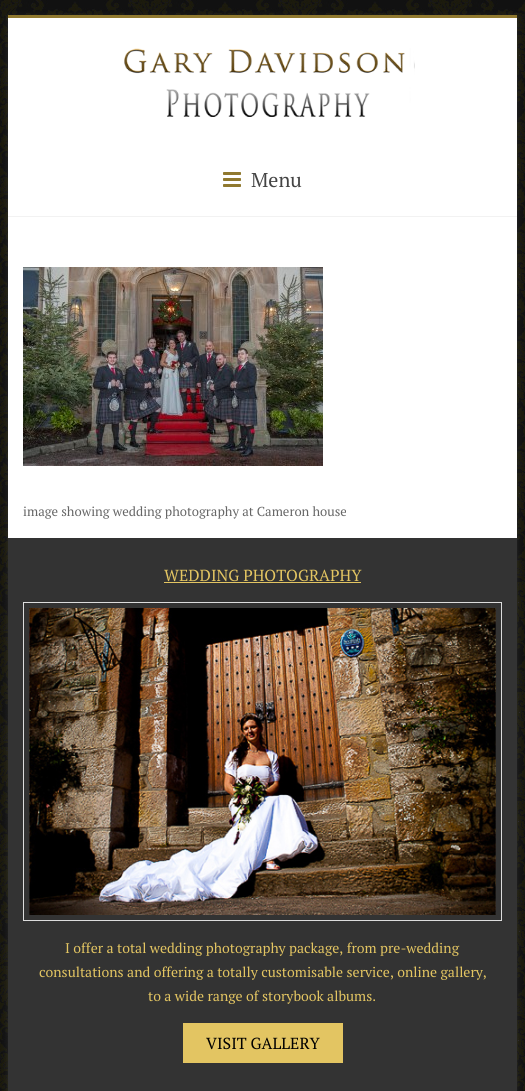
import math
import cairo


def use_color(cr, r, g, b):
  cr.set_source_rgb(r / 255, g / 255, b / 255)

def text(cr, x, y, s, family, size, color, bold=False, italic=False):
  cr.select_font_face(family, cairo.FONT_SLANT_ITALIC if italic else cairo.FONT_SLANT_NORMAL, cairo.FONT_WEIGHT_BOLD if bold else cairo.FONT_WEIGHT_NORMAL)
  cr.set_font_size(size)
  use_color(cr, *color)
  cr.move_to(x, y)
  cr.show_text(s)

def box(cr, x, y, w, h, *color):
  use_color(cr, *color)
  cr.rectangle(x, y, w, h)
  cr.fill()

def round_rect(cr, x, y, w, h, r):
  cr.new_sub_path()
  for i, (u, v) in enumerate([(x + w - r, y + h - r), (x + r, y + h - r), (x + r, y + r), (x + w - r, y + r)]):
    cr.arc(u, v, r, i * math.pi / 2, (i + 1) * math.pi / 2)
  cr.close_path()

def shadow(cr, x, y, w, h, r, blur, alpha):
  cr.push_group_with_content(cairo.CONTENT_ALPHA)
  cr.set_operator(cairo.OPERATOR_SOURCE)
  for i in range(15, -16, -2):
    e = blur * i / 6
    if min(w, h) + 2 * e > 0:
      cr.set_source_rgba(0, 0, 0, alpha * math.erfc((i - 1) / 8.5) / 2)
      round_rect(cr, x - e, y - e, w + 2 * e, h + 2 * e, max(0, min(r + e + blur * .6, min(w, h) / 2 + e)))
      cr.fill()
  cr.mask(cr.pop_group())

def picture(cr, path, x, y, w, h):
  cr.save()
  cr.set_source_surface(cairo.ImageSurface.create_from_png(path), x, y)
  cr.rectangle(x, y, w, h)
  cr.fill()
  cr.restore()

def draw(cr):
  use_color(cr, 255, 255, 255)
  cr.paint()
  picture(cr, "img_01.png", 0, 0, 525, 1091)
  use_color(cr, 100, 100, 100)
  shadow(cr, 8, 17, 509, 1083, 0, 3, 0.3)
  box(cr, 8, 18, 509, 520, 255, 255, 255)
  box(cr, 8, 15, 509, 3, 144, 121, 47)
  box(cr, 8, 216, 509, 1, 242, 242, 242)
  picture(cr, "img_02.png", 124, 48, 291, 69)
  picture(cr, "img_03.png", 223, 172, 18, 15)
  picture(cr, "img_04.png", 23, 267, 300, 199)
  box(cr, 8, 538, 509, 553, 51, 51, 51)
  box(cr, 164, 582, 197, 1, 227, 197, 98)
  cr.rectangle(23.5, 602.5, 478, 318)
  use_color(cr, 221, 221, 221)
  cr.set_line_width(1)
  cr.stroke()
  picture(cr, "img_05.png", 29, 608, 467, 307)
  box(cr, 183, 1023, 160, 40, 227, 197, 98)
  text(cr, 251, 187, "Menu", "PT Serif", 20, (68, 68, 68))
  text(cr, 23, 516, "image showing wedding photography at Cameron house", "PT Serif", 13, (102, 102, 102))
  text(cr, 164, 581, "WEDDING PHOTOGRAPHY", "PT Serif", 16, (227, 197, 98))
  text(cr, 65, 953, "I offer a total wedding photography package, from pre-wedding", "PT Serif", 14, (227, 197, 98))
  text(cr, 39, 977, "consultations and offering a totally customisable service, online gallery,", "PT Serif", 14, (227, 197, 98))
  text(cr, 148, 1001, "to a wide range of storybook albums.", "PT Serif", 14, (227, 197, 98))
  text(cr, 206, 1049, "VISIT GALLERY", "PT Serif", 16, (0, 0, 0))


surface = cairo.ImageSurface(cairo.FORMAT_RGB24, 525, 1091)
cr = cairo.Context(surface)
options = cairo.FontOptions()
options.set_hint_metrics(cairo.HINT_METRICS_OFF)
options.set_hint_style(cairo.HINT_STYLE_NONE)
cr.set_font_options(options)
cr.set_miter_limit(4)
draw(cr)
surface.write_to_png("out.png")
